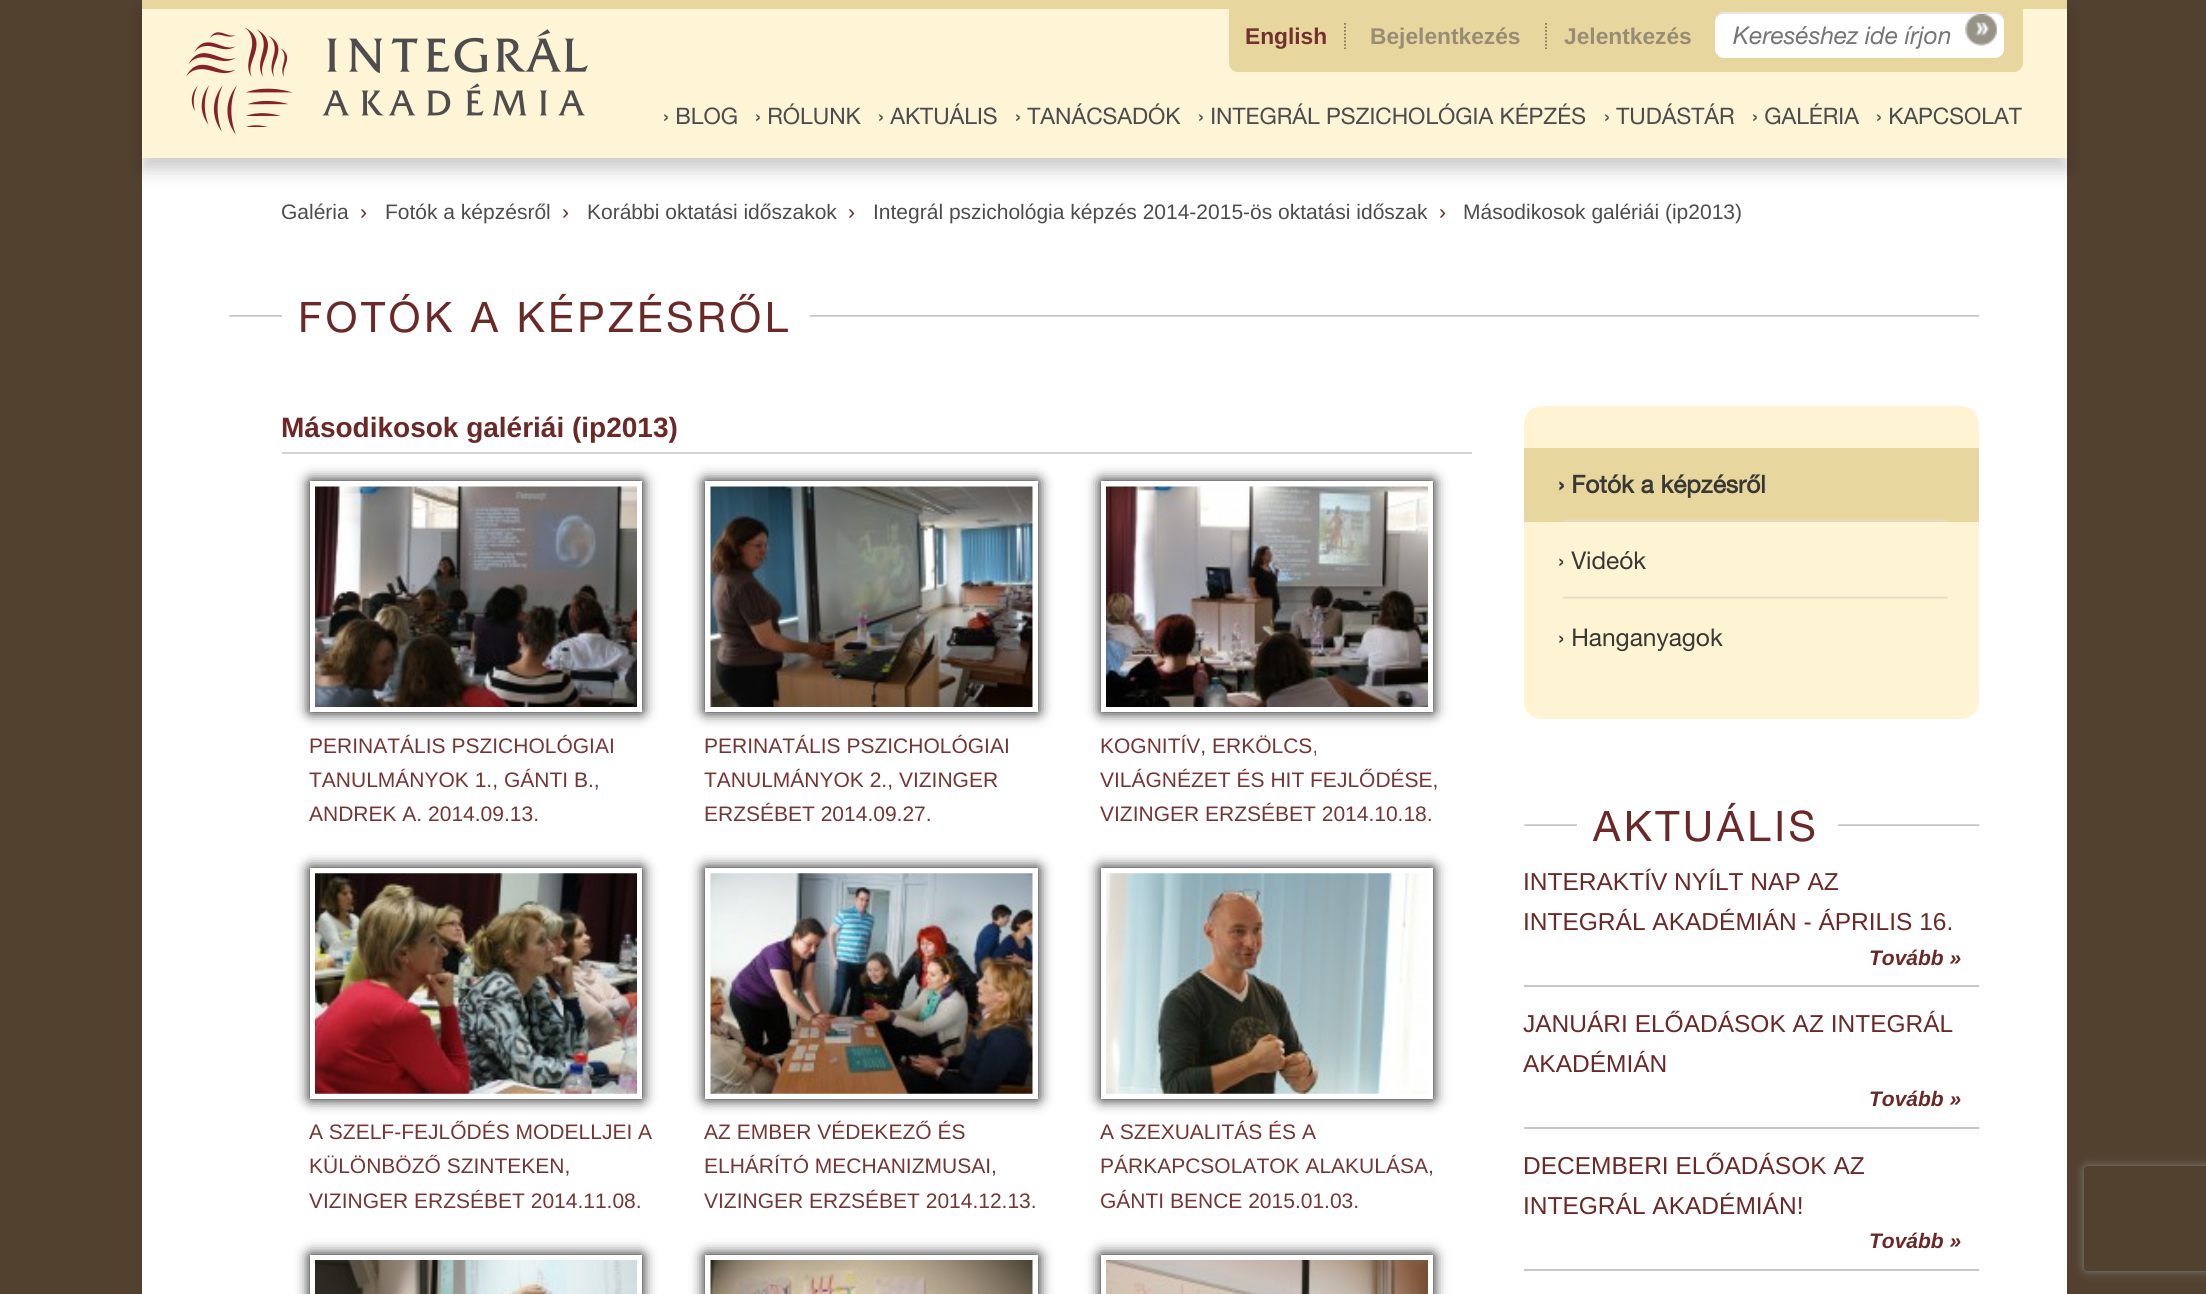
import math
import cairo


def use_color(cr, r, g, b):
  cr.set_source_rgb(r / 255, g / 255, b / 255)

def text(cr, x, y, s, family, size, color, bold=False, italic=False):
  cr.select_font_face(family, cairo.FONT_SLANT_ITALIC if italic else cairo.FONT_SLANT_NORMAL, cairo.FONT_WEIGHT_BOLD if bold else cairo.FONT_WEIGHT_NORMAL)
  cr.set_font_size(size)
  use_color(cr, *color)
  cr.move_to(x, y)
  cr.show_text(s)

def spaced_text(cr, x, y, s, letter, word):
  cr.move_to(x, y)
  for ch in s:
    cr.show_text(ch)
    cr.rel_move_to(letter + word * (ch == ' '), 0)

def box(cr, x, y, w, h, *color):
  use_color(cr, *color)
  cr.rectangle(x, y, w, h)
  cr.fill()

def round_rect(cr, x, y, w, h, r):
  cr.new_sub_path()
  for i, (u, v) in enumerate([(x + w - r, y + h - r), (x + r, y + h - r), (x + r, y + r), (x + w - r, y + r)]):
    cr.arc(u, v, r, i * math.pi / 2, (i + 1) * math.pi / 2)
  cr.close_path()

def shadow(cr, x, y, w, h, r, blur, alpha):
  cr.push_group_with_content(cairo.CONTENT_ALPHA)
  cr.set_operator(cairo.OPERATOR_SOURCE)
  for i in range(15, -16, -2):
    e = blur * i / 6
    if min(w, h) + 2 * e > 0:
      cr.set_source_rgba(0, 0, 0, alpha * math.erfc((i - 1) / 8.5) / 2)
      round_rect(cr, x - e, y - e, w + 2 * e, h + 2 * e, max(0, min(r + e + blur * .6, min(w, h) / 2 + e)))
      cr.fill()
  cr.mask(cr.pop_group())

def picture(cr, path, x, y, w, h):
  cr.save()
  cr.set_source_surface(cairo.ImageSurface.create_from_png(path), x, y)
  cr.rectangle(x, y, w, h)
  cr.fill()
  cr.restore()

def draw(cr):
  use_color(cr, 83, 65, 48)
  cr.paint()
  box(cr, 142, 9, 1925, 1285, 255, 255, 255)
  cr.save()
  cr.set_fill_rule(cairo.FILL_RULE_EVEN_ODD)
  cr.new_path()
  cr.move_to(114, 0)
  cr.line_to(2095, 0)
  cr.line_to(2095, 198)
  cr.line_to(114, 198)
  cr.close_path()
  cr.move_to(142, 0)
  cr.line_to(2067, 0)
  cr.line_to(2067, 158)
  cr.line_to(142, 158)
  cr.close_path()
  cr.clip()
  use_color(cr, 0, 0, 0)
  shadow(cr, 142, 12, 1925, 158, 0, 9, 0.2)
  cr.restore()
  cr.set_source_rgba(0.996, 0.957, 0.827, 0.9)
  cr.rectangle(142, 9, 1925, 149)
  cr.fill()
  box(cr, 142, 0, 1925, 9, 232, 214, 159)
  picture(cr, "img_01.png", 186, 27, 402, 108)
  cr.new_path()
  cr.move_to(1229, 9)
  cr.line_to(2023, 9)
  cr.line_to(2023, 63)
  cr.curve_to(2023, 68, 2019, 72, 2014, 72)
  cr.line_to(1238, 72)
  cr.curve_to(1233, 72, 1229, 68, 1229, 63)
  cr.close_path()
  cr.fill()
  cr.new_path()
  cr.move_to(1345, 23)
  cr.line_to(1345, 49)
  use_color(cr, 129, 119, 89)
  cr.set_line_width(1.8)
  cr.set_dash([1.75, 1.75])
  cr.stroke()
  cr.new_path()
  cr.move_to(1546, 23)
  cr.line_to(1546, 49)
  cr.stroke()
  use_color(cr, 255, 255, 255)
  round_rect(cr, 1715, 12, 289, 46, 9)
  cr.fill()
  cr.set_source_rgba(0, 0, 0, 0.1)
  cr.new_path()
  cr.move_to(1724, 14)
  cr.line_to(1995, 14)
  cr.curve_to(2000, 14, 2004, 18, 2004, 23)
  cr.line_to(2004, 21)
  cr.curve_to(2004, 16, 2000, 12, 1995, 12)
  cr.line_to(1724, 12)
  cr.curve_to(1719, 12, 1715, 16, 1715, 21)
  cr.line_to(1715, 23)
  cr.curve_to(1715, 18, 1719, 14, 1724, 14)
  cr.close_path()
  cr.fill()
  picture(cr, "img_02.png", 1965, 14, 32, 32)
  picture(cr, "img_03.png", 229, 315, 1751, 2)
  box(cr, 282, 315, 528, 2, 255, 255, 255)
  box(cr, 282, 452, 1190, 2, 211, 211, 211)
  use_color(cr, 0, 0, 0)
  shadow(cr, 310, 481, 332, 231, 0, 7, 1)
  box(cr, 310, 481, 332, 231, 255, 255, 255)
  picture(cr, "img_04.png", 315, 486, 322, 221)
  use_color(cr, 0, 0, 0)
  shadow(cr, 705, 481, 333, 231, 0, 7, 1)
  box(cr, 705, 481, 333, 231, 255, 255, 255)
  picture(cr, "img_05.png", 710, 486, 323, 221)
  use_color(cr, 0, 0, 0)
  shadow(cr, 1101, 481, 332, 231, 0, 7, 1)
  box(cr, 1101, 481, 332, 231, 255, 255, 255)
  picture(cr, "img_06.png", 1106, 486, 322, 221)
  cr.save()
  cr.set_fill_rule(cairo.FILL_RULE_EVEN_ODD)
  cr.new_path()
  cr.move_to(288, 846)
  cr.line_to(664, 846)
  cr.line_to(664, 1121)
  cr.line_to(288, 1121)
  cr.close_path()
  cr.move_to(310, 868)
  cr.line_to(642, 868)
  cr.line_to(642, 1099)
  cr.line_to(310, 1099)
  cr.close_path()
  cr.clip()
  use_color(cr, 0, 0, 0)
  shadow(cr, 310, 868, 332, 231, 0, 7, 1)
  cr.restore()
  picture(cr, "img_07.png", 315, 873, 322, 221)
  use_color(cr, 0, 0, 0)
  shadow(cr, 705, 868, 333, 231, 0, 7, 1)
  box(cr, 705, 868, 333, 231, 255, 255, 255)
  picture(cr, "img_08.png", 710, 873, 323, 221)
  cr.save()
  cr.set_fill_rule(cairo.FILL_RULE_EVEN_ODD)
  cr.new_path()
  cr.move_to(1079, 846)
  cr.line_to(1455, 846)
  cr.line_to(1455, 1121)
  cr.line_to(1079, 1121)
  cr.close_path()
  cr.move_to(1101, 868)
  cr.line_to(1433, 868)
  cr.line_to(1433, 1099)
  cr.line_to(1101, 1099)
  cr.close_path()
  cr.clip()
  use_color(cr, 0, 0, 0)
  shadow(cr, 1101, 868, 332, 231, 0, 7, 1)
  cr.restore()
  picture(cr, "img_09.png", 1106, 873, 322, 221)
  cr.save()
  cr.set_fill_rule(cairo.FILL_RULE_EVEN_ODD)
  cr.new_path()
  cr.move_to(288, 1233)
  cr.line_to(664, 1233)
  cr.line_to(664, 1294)
  cr.line_to(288, 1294)
  cr.close_path()
  cr.move_to(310, 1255)
  cr.line_to(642, 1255)
  cr.line_to(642, 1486)
  cr.line_to(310, 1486)
  cr.close_path()
  cr.clip()
  use_color(cr, 0, 0, 0)
  shadow(cr, 310, 1255, 332, 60, 0, 7, 1)
  cr.restore()
  picture(cr, "img_10.png", 315, 1260, 322, 34)
  use_color(cr, 0, 0, 0)
  shadow(cr, 705, 1255, 333, 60, 0, 7, 1)
  box(cr, 705, 1255, 333, 39, 255, 255, 255)
  picture(cr, "img_11.png", 710, 1260, 323, 34)
  cr.save()
  cr.set_fill_rule(cairo.FILL_RULE_EVEN_ODD)
  cr.new_path()
  cr.move_to(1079, 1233)
  cr.line_to(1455, 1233)
  cr.line_to(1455, 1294)
  cr.line_to(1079, 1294)
  cr.close_path()
  cr.move_to(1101, 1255)
  cr.line_to(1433, 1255)
  cr.line_to(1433, 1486)
  cr.line_to(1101, 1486)
  cr.close_path()
  cr.clip()
  use_color(cr, 0, 0, 0)
  shadow(cr, 1101, 1255, 332, 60, 0, 7, 1)
  cr.restore()
  picture(cr, "img_12.png", 1106, 1260, 322, 34)
  use_color(cr, 254, 244, 211)
  round_rect(cr, 1524, 406, 455, 313, 18)
  cr.fill()
  box(cr, 1524, 448, 455, 74, 232, 214, 159)
  picture(cr, "img_13.png", 1562, 519, 387, 3)
  picture(cr, "img_14.png", 1562, 596, 386, 3)
  picture(cr, "img_15.png", 1524, 824, 456, 2)
  box(cr, 1577, 824, 261, 2, 255, 255, 255)
  box(cr, 1524, 985, 455, 2, 199, 199, 199)
  box(cr, 1524, 1127, 455, 2, 199, 199, 199)
  box(cr, 1524, 1269, 455, 2, 199, 199, 199)
  cr.save()
  cr.set_fill_rule(cairo.FILL_RULE_EVEN_ODD)
  cr.new_path()
  cr.move_to(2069, 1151)
  cr.line_to(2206, 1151)
  cr.line_to(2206, 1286)
  cr.line_to(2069, 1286)
  cr.close_path()
  cr.move_to(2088, 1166)
  cr.line_to(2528, 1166)
  cr.curve_to(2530, 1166, 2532, 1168, 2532, 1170)
  cr.line_to(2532, 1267)
  cr.curve_to(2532, 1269, 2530, 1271, 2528, 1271)
  cr.line_to(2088, 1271)
  cr.curve_to(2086, 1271, 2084, 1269, 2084, 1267)
  cr.line_to(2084, 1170)
  cr.curve_to(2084, 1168, 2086, 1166, 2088, 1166)
  cr.close_path()
  cr.clip()
  use_color(cr, 128, 128, 128)
  shadow(cr, 2084, 1166, 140, 105, 4, 4.5, 1)
  cr.restore()
  text(cr, 1245, 44, "English", "Liberation Sans", 22.75, (113, 49, 46), bold=True)
  text(cr, 1370, 44, "Bejelentkezés", "Liberation Sans", 22.75, (152, 140, 116), bold=True)
  text(cr, 1564, 44, "Jelentkezés", "Liberation Sans", 22.75, (152, 140, 116), bold=True)
  text(cr, 1733, 44, "Kereséshez ide írjon", "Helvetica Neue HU", 24.5, (117, 117, 117), italic=True)
  text(cr, 663, 124, "› BLOG", "Helvetica Neue HU", 22.75, (76, 76, 76))
  text(cr, 755, 124, "› RÓLUNK", "Helvetica Neue HU", 22.75, (76, 76, 76))
  text(cr, 878, 124, "› AKTUÁLIS", "Helvetica Neue HU", 22.75, (76, 76, 76))
  text(cr, 1015, 124, "› TANÁCSADÓK", "Helvetica Neue HU", 22.75, (76, 76, 76))
  text(cr, 1198, 124, "› INTEGRÁL PSZICHOLÓGIA KÉPZÉS", "Helvetica Neue HU", 22.75, (76, 76, 76))
  text(cr, 1604, 124, "› TUDÁSTÁR", "Helvetica Neue HU", 22.75, (76, 76, 76))
  text(cr, 1752, 124, "› GALÉRIA", "Helvetica Neue HU", 22.75, (76, 76, 76))
  text(cr, 1876, 124, "› KAPCSOLAT", "Helvetica Neue HU", 22.75, (76, 76, 76))
  text(cr, 281, 219, "Galéria", "Liberation Sans", 21, (76, 76, 76))
  text(cr, 360, 219, "›", "Liberation Sans", 21, (106, 40, 38))
  text(cr, 385, 219, "Fotók a képzésről", "Liberation Sans", 21, (76, 76, 76))
  text(cr, 562, 219, "›", "Liberation Sans", 21, (106, 40, 38))
  text(cr, 587, 219, "Korábbi oktatási időszakok", "Liberation Sans", 21, (76, 76, 76))
  text(cr, 848, 219, "›", "Liberation Sans", 21, (106, 40, 38))
  text(cr, 873, 219, "Integrál pszichológia képzés 2014-2015-ös oktatási időszak", "Liberation Sans", 21, (76, 76, 76))
  text(cr, 1439, 219, "›", "Liberation Sans", 21, (106, 40, 38))
  text(cr, 1463, 219, "Másodikosok galériái (ip2013)", "Liberation Sans", 21, (76, 76, 76))
  cr.select_font_face("Helvetica Neue HU")
  cr.set_font_size(42)
  use_color(cr, 106, 40, 38)
  spaced_text(cr, 298, 332, "FOTÓK A KÉPZÉSRŐL", 3.5, 0)
  text(cr, 281, 437, "Másodikosok galériái (ip2013)", "Liberation Sans", 28, (106, 40, 38), bold=True)
  text(cr, 309, 753, "PERINATÁLIS PSZICHOLÓGIAI", "Liberation Sans", 21, (116, 54, 52))
  text(cr, 309, 787, "TANULMÁNYOK 1., GÁNTI B.,", "Liberation Sans", 21, (116, 54, 52))
  text(cr, 309, 821, "ANDREK A. 2014.09.13.", "Liberation Sans", 21, (116, 54, 52))
  text(cr, 704, 753, "PERINATÁLIS PSZICHOLÓGIAI", "Liberation Sans", 21, (116, 54, 52))
  text(cr, 704, 787, "TANULMÁNYOK 2., VIZINGER", "Liberation Sans", 21, (116, 54, 52))
  text(cr, 704, 821, "ERZSÉBET 2014.09.27.", "Liberation Sans", 21, (116, 54, 52))
  text(cr, 1100, 753, "KOGNITÍV, ERKÖLCS,", "Liberation Sans", 21, (116, 54, 52))
  text(cr, 1100, 787, "VILÁGNÉZET ÉS HIT FEJLŐDÉSE,", "Liberation Sans", 21, (116, 54, 52))
  text(cr, 1100, 821, "VIZINGER ERZSÉBET 2014.10.18.", "Liberation Sans", 21, (116, 54, 52))
  text(cr, 309, 1139, "A SZELF-FEJLŐDÉS MODELLJEI A", "Liberation Sans", 21, (116, 54, 52))
  text(cr, 309, 1173, "KÜLÖNBÖZŐ SZINTEKEN,", "Liberation Sans", 21, (116, 54, 52))
  text(cr, 309, 1208, "VIZINGER ERZSÉBET 2014.11.08.", "Liberation Sans", 21, (116, 54, 52))
  text(cr, 704, 1139, "AZ EMBER VÉDEKEZŐ ÉS", "Liberation Sans", 21, (116, 54, 52))
  text(cr, 704, 1173, "ELHÁRÍTÓ MECHANIZMUSAI,", "Liberation Sans", 21, (116, 54, 52))
  text(cr, 704, 1208, "VIZINGER ERZSÉBET 2014.12.13.", "Liberation Sans", 21, (116, 54, 52))
  text(cr, 1100, 1139, "A SZEXUALITÁS ÉS A", "Liberation Sans", 21, (116, 54, 52))
  text(cr, 1100, 1173, "PÁRKAPCSOLATOK ALAKULÁSA,", "Liberation Sans", 21, (116, 54, 52))
  text(cr, 1100, 1208, "GÁNTI BENCE 2015.01.03.", "Liberation Sans", 21, (116, 54, 52))
  text(cr, 1558, 493, "› Fotók a képzésről", "Helvetica Neue HU", 24.5, (57, 56, 51), bold=True)
  text(cr, 1558, 569, "› Videók", "Helvetica Neue HU", 24.5, (57, 56, 51))
  text(cr, 1558, 646, "› Hanganyagok", "Helvetica Neue HU", 24.5, (57, 56, 51))
  cr.set_font_size(42)
  use_color(cr, 106, 40, 38)
  spaced_text(cr, 1593, 841, "AKTUÁLIS", 3.5, 0)
  text(cr, 1523, 890, "INTERAKTÍV NYÍLT NAP AZ", "Liberation Sans", 24.5, (106, 40, 38))
  text(cr, 1523, 930, "INTEGRÁL AKADÉMIÁN - ÁPRILIS 16.", "Liberation Sans", 24.5, (106, 40, 38))
  text(cr, 1869, 965, "Tovább »", "Liberation Sans", 21, (106, 40, 38), bold=True, italic=True)
  text(cr, 1523, 1032, "JANUÁRI ELŐADÁSOK AZ INTEGRÁL", "Liberation Sans", 24.5, (106, 40, 38))
  text(cr, 1523, 1072, "AKADÉMIÁN", "Liberation Sans", 24.5, (106, 40, 38))
  text(cr, 1869, 1106, "Tovább »", "Liberation Sans", 21, (106, 40, 38), bold=True, italic=True)
  text(cr, 1523, 1174, "DECEMBERI ELŐADÁSOK AZ", "Liberation Sans", 24.5, (106, 40, 38))
  text(cr, 1523, 1214, "INTEGRÁL AKADÉMIÁN!", "Liberation Sans", 24.5, (106, 40, 38))
  text(cr, 1869, 1248, "Tovább »", "Liberation Sans", 21, (106, 40, 38), bold=True, italic=True)


surface = cairo.ImageSurface(cairo.FORMAT_RGB24, 2206, 1294)
cr = cairo.Context(surface)
options = cairo.FontOptions()
options.set_hint_metrics(cairo.HINT_METRICS_OFF)
options.set_hint_style(cairo.HINT_STYLE_NONE)
cr.set_font_options(options)
cr.set_miter_limit(4)
draw(cr)
surface.write_to_png("out.png")
